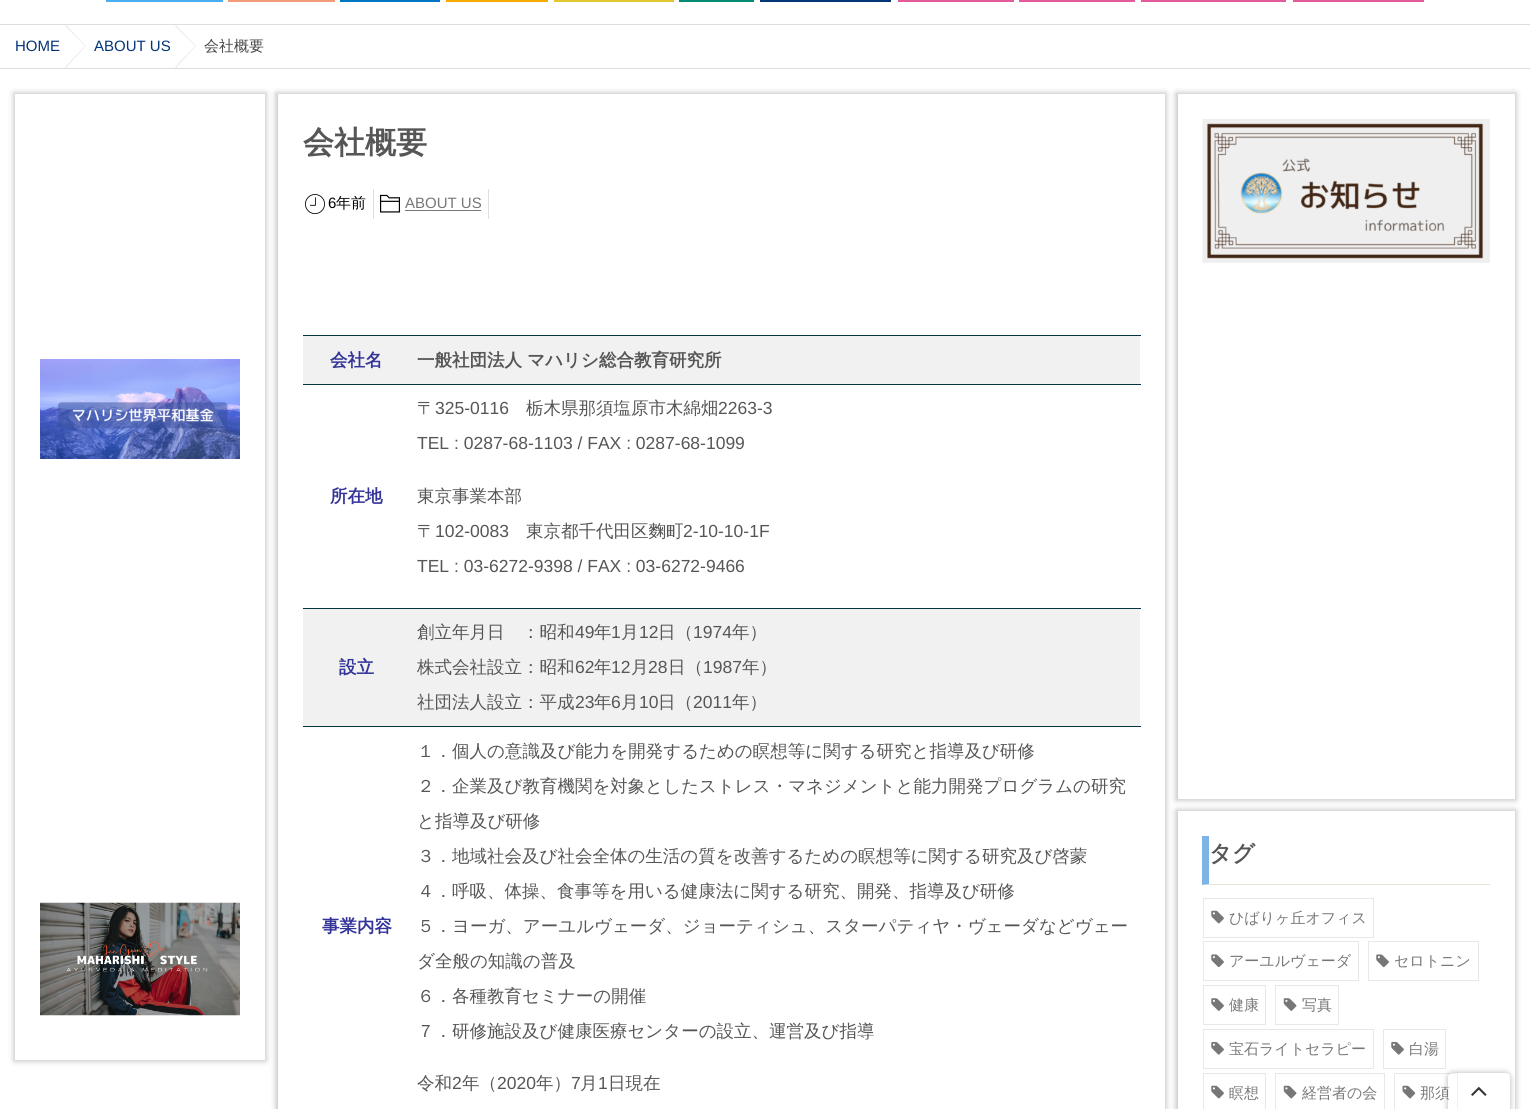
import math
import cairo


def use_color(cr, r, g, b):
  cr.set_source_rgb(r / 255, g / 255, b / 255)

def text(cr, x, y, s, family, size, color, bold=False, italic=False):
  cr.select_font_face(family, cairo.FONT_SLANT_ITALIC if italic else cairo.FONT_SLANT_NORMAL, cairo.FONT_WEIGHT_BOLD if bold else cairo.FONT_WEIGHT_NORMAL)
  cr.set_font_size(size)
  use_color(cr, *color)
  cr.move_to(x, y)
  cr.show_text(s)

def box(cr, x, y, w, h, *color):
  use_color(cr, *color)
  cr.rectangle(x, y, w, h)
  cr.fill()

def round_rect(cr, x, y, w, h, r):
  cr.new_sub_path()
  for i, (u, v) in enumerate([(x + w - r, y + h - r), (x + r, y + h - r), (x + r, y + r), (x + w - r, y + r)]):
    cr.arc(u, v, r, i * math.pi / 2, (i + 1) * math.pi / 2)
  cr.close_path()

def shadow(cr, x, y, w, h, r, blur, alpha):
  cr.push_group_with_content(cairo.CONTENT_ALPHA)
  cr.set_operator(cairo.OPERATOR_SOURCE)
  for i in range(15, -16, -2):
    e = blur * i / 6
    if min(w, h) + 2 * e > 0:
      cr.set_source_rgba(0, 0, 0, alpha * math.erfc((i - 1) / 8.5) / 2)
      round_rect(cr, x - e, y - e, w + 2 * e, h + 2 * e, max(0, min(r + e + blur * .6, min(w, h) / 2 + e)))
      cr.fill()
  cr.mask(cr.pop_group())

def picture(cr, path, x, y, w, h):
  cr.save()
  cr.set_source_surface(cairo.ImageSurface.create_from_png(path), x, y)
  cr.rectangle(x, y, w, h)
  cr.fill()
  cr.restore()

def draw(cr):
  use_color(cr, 255, 255, 255)
  cr.paint()
  box(cr, 106, 0, 117, 2, 74, 175, 242)
  box(cr, 228, 0, 107, 2, 242, 155, 118)
  box(cr, 340, 0, 100, 2, 0, 117, 194)
  box(cr, 446, 0, 102, 2, 247, 171, 0)
  box(cr, 554, 0, 120, 2, 225, 199, 45)
  box(cr, 679, 0, 75, 2, 4, 139, 116)
  box(cr, 760, 0, 131, 2, 2, 53, 119)
  box(cr, 898, 0, 116, 2, 229, 90, 155)
  box(cr, 1019, 0, 116, 2, 229, 90, 155)
  box(cr, 1141, 0, 145, 2, 229, 90, 155)
  box(cr, 1293, 0, 131, 2, 229, 90, 155)
  box(cr, 0, 24, 1530, 1, 221, 221, 221)
  box(cr, 0, 68, 1530, 1, 221, 221, 221)
  use_color(cr, 236, 236, 236)
  cr.new_path()
  cr.move_to(65, 26)
  cr.line_to(85, 46)
  cr.line_to(65, 67)
  cr.line_to(66, 68)
  cr.line_to(86, 46)
  cr.line_to(66, 25)
  cr.close_path()
  cr.fill()
  cr.new_path()
  cr.move_to(175, 26)
  cr.line_to(195, 46)
  cr.line_to(175, 67)
  cr.line_to(176, 68)
  cr.line_to(196, 46)
  cr.line_to(176, 25)
  cr.close_path()
  cr.fill()
  cr.save()
  cr.set_fill_rule(cairo.FILL_RULE_EVEN_ODD)
  cr.new_path()
  cr.move_to(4, 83)
  cr.line_to(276, 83)
  cr.line_to(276, 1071)
  cr.line_to(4, 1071)
  cr.close_path()
  cr.move_to(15, 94)
  cr.line_to(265, 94)
  cr.line_to(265, 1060)
  cr.line_to(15, 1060)
  cr.close_path()
  cr.clip()
  use_color(cr, 0, 0, 0)
  shadow(cr, 14, 93, 252, 968, 0, 3, 0.25)
  cr.restore()
  picture(cr, "img_01.png", 40, 359, 200, 100)
  picture(cr, "img_02.png", 40, 902, 200, 114)
  cr.save()
  cr.set_fill_rule(cairo.FILL_RULE_EVEN_ODD)
  cr.new_path()
  cr.move_to(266, 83)
  cr.line_to(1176, 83)
  cr.line_to(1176, 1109)
  cr.line_to(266, 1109)
  cr.close_path()
  cr.move_to(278, 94)
  cr.line_to(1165, 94)
  cr.line_to(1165, 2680)
  cr.line_to(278, 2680)
  cr.close_path()
  cr.clip()
  use_color(cr, 0, 0, 0)
  shadow(cr, 276, 93, 890, 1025, 0, 3, 0.25)
  cr.restore()
  box(cr, 373, 189, 1, 30, 224, 222, 222)
  picture(cr, "img_03.png", 305, 194, 20, 20)
  box(cr, 488, 189, 1, 30, 224, 222, 222)
  picture(cr, "img_04.png", 380, 194, 20, 19)
  box(cr, 405, 210, 76, 1, 119, 119, 119)
  box(cr, 303, 335, 838, 1, 4, 54, 64)
  box(cr, 303, 336, 837, 48, 241, 241, 241)
  box(cr, 303, 384, 838, 1, 4, 54, 64)
  box(cr, 303, 608, 838, 1, 4, 54, 64)
  box(cr, 303, 609, 837, 117, 241, 241, 241)
  box(cr, 303, 726, 838, 1, 4, 54, 64)
  use_color(cr, 0, 0, 0)
  shadow(cr, 1176, 93, 340, 707, 0, 3, 0.25)
  box(cr, 1178, 94, 337, 705, 255, 255, 255)
  picture(cr, "img_05.png", 1202, 119, 288, 144)
  use_color(cr, 0, 0, 0)
  shadow(cr, 1176, 810, 340, 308, 0, 3, 0.25)
  box(cr, 1178, 811, 337, 298, 255, 255, 255)
  use_color(cr, 235, 228, 218)
  cr.new_path()
  cr.move_to(1490, 885)
  cr.line_to(1202, 885)
  cr.line_to(1209, 884)
  cr.line_to(1490, 884)
  cr.close_path()
  cr.fill()
  use_color(cr, 125, 180, 230)
  cr.new_path()
  cr.move_to(1202, 885)
  cr.line_to(1202, 836)
  cr.line_to(1209, 836)
  cr.line_to(1209, 884)
  cr.close_path()
  cr.fill()
  cr.rectangle(1203.5, 898.5, 170, 39)
  use_color(cr, 232, 232, 232)
  cr.set_line_width(1)
  cr.stroke()
  picture(cr, "img_06.png", 1211, 910, 13, 14)
  cr.rectangle(1203.5, 941.5, 155, 39)
  cr.stroke()
  picture(cr, "img_07.png", 1211, 954, 13, 14)
  cr.rectangle(1368.5, 941.5, 110, 39)
  cr.stroke()
  picture(cr, "img_07.png", 1376, 954, 13, 14)
  cr.rectangle(1203.5, 985.5, 62, 39)
  cr.stroke()
  picture(cr, "img_08.png", 1211, 998, 13, 13)
  cr.rectangle(1275.5, 985.5, 63, 39)
  cr.stroke()
  picture(cr, "img_09.png", 1283, 998, 14, 13)
  cr.rectangle(1203.5, 1029.5, 170, 39)
  cr.stroke()
  picture(cr, "img_10.png", 1211, 1041, 13, 14)
  cr.rectangle(1383.5, 1029.5, 62, 39)
  cr.stroke()
  picture(cr, "img_10.png", 1391, 1041, 13, 14)
  cr.rectangle(1203.5, 1073.5, 62, 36)
  cr.stroke()
  picture(cr, "img_06.png", 1211, 1085, 13, 14)
  cr.rectangle(1275.5, 1073.5, 109, 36)
  cr.stroke()
  picture(cr, "img_11.png", 1283, 1085, 14, 14)
  cr.rectangle(1394.5, 1073.5, 63, 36)
  cr.stroke()
  picture(cr, "img_12.png", 1402, 1085, 14, 14)
  cr.save()
  cr.set_fill_rule(cairo.FILL_RULE_EVEN_ODD)
  cr.new_path()
  cr.move_to(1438, 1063)
  cr.line_to(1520, 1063)
  cr.line_to(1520, 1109)
  cr.line_to(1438, 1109)
  cr.close_path()
  cr.move_to(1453, 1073)
  cr.line_to(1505, 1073)
  cr.curve_to(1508, 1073, 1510, 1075, 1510, 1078)
  cr.line_to(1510, 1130)
  cr.curve_to(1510, 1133, 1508, 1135, 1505, 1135)
  cr.line_to(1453, 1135)
  cr.curve_to(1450, 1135, 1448, 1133, 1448, 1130)
  cr.line_to(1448, 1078)
  cr.curve_to(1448, 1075, 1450, 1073, 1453, 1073)
  cr.close_path()
  cr.clip()
  use_color(cr, 0, 0, 0)
  shadow(cr, 1448, 1073, 62, 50, 5, 3, 0.3)
  cr.restore()
  text(cr, 15, 51, "HOME", "Liberation Sans", 15, (2, 53, 119))
  text(cr, 94, 51, "ABOUT US", "Liberation Sans", 15, (2, 53, 119))
  text(cr, 204, 51, "会社概要", "WenQuanYi Zen Hei Medium", 15, (68, 68, 68))
  text(cr, 303, 153, "会社概要", "WenQuanYi Zen Hei", 31, (86, 86, 86), bold=True)
  text(cr, 328, 208, "6", "Liberation Sans", 15, (0, 0, 0))
  text(cr, 336, 208, "年前", "WenQuanYi Zen Hei Medium", 15, (0, 0, 0))
  text(cr, 405, 208, "ABOUT US", "Liberation Sans", 15, (119, 119, 119))
  text(cr, 330, 366, "会社名", "WenQuanYi Zen Hei", 17.5, (51, 51, 153), bold=True)
  text(cr, 417, 366, "一般社団法人 マハリシ総合教育研究所", "WenQuanYi Zen Hei", 17.5, (86, 86, 86), bold=True)
  text(cr, 330, 502, "所在地", "WenQuanYi Zen Hei", 17.5, (51, 51, 153), bold=True)
  text(cr, 417, 414, "〒", "WenQuanYi Zen Hei Medium", 17.5, (86, 86, 86))
  text(cr, 435, 414, "325-0116", "Liberation Sans", 17.5, (86, 86, 86))
  text(cr, 526, 414, "栃木県那須塩原市木綿畑", "WenQuanYi Zen Hei Medium", 17.5, (86, 86, 86))
  text(cr, 718, 414, "2263-3", "Liberation Sans", 17.5, (86, 86, 86))
  text(cr, 417, 449, "TEL : 0287-68-1103 / FAX : 0287-68-1099", "Liberation Sans", 17.5, (86, 86, 86))
  text(cr, 417, 502, "東京事業本部", "WenQuanYi Zen Hei Medium", 17.5, (86, 86, 86))
  text(cr, 417, 537, "〒", "WenQuanYi Zen Hei Medium", 17.5, (86, 86, 86))
  text(cr, 435, 537, "102-0083", "Liberation Sans", 17.5, (86, 86, 86))
  text(cr, 526, 537, "東京都千代田区麴町", "WenQuanYi Zen Hei Medium", 17.5, (86, 86, 86))
  text(cr, 683, 537, "2-10-10-1F", "Liberation Sans", 17.5, (86, 86, 86))
  text(cr, 417, 572, "TEL : 03-6272-9398 / FAX : 03-6272-9466", "Liberation Sans", 17.5, (86, 86, 86))
  text(cr, 339, 673, "設立", "WenQuanYi Zen Hei", 17.5, (51, 51, 153), bold=True)
  text(cr, 417, 638, "創立年月日　：昭和", "WenQuanYi Zen Hei Medium", 17.5, (86, 86, 86))
  text(cr, 575, 638, "49", "Liberation Sans", 17.5, (86, 86, 86))
  text(cr, 594, 638, "年", "WenQuanYi Zen Hei Medium", 17.5, (86, 86, 86))
  text(cr, 611, 638, "1", "Liberation Sans", 17.5, (86, 86, 86))
  text(cr, 621, 638, "月", "WenQuanYi Zen Hei Medium", 17.5, (86, 86, 86))
  text(cr, 639, 638, "12", "Liberation Sans", 17.5, (86, 86, 86))
  text(cr, 658, 638, "日（", "WenQuanYi Zen Hei Medium", 17.5, (86, 86, 86))
  text(cr, 693, 638, "1974", "Liberation Sans", 17.5, (86, 86, 86))
  text(cr, 732, 638, "年）", "WenQuanYi Zen Hei Medium", 17.5, (86, 86, 86))
  text(cr, 417, 673, "株式会社設立：昭和", "WenQuanYi Zen Hei Medium", 17.5, (86, 86, 86))
  text(cr, 575, 673, "62", "Liberation Sans", 17.5, (86, 86, 86))
  text(cr, 594, 673, "年", "WenQuanYi Zen Hei Medium", 17.5, (86, 86, 86))
  text(cr, 611, 673, "12", "Liberation Sans", 17.5, (86, 86, 86))
  text(cr, 631, 673, "月", "WenQuanYi Zen Hei Medium", 17.5, (86, 86, 86))
  text(cr, 648, 673, "28", "Liberation Sans", 17.5, (86, 86, 86))
  text(cr, 668, 673, "日（", "WenQuanYi Zen Hei Medium", 17.5, (86, 86, 86))
  text(cr, 703, 673, "1987", "Liberation Sans", 17.5, (86, 86, 86))
  text(cr, 742, 673, "年）", "WenQuanYi Zen Hei Medium", 17.5, (86, 86, 86))
  text(cr, 417, 708, "社団法人設立：平成", "WenQuanYi Zen Hei Medium", 17.5, (86, 86, 86))
  text(cr, 575, 708, "23", "Liberation Sans", 17.5, (86, 86, 86))
  text(cr, 594, 708, "年", "WenQuanYi Zen Hei Medium", 17.5, (86, 86, 86))
  text(cr, 611, 708, "6", "Liberation Sans", 17.5, (86, 86, 86))
  text(cr, 621, 708, "月", "WenQuanYi Zen Hei Medium", 17.5, (86, 86, 86))
  text(cr, 639, 708, "10", "Liberation Sans", 17.5, (86, 86, 86))
  text(cr, 658, 708, "日（", "WenQuanYi Zen Hei Medium", 17.5, (86, 86, 86))
  text(cr, 693, 708, "2011", "Liberation Sans", 17.5, (86, 86, 86))
  text(cr, 732, 708, "年）", "WenQuanYi Zen Hei Medium", 17.5, (86, 86, 86))
  text(cr, 322, 932, "事業内容", "WenQuanYi Zen Hei", 17.5, (51, 51, 153), bold=True)
  text(cr, 417, 757, "１．個人の意識及び能力を開発するための瞑想等に関する研究と指導及び研修", "WenQuanYi Zen Hei Medium", 17.5, (86, 86, 86))
  text(cr, 417, 792, "２．企業及び教育機関を対象としたストレス・マネジメントと能力開発プログラムの研究", "WenQuanYi Zen Hei Medium", 17.5, (86, 86, 86))
  text(cr, 417, 827, "と指導及び研修", "WenQuanYi Zen Hei Medium", 17.5, (86, 86, 86))
  text(cr, 417, 862, "３．地域社会及び社会全体の生活の質を改善するための瞑想等に関する研究及び啓蒙", "WenQuanYi Zen Hei Medium", 17.5, (86, 86, 86))
  text(cr, 417, 897, "４．呼吸、体操、食事等を用いる健康法に関する研究、開発、指導及び研修", "WenQuanYi Zen Hei Medium", 17.5, (86, 86, 86))
  text(cr, 417, 932, "５．ヨーガ、アーユルヴェーダ、ジョーティシュ、スターパティヤ・ヴェーダなどヴェー", "WenQuanYi Zen Hei Medium", 17.5, (86, 86, 86))
  text(cr, 417, 967, "ダ全般の知識の普及", "WenQuanYi Zen Hei Medium", 17.5, (86, 86, 86))
  text(cr, 417, 1002, "６．各種教育セミナーの開催", "WenQuanYi Zen Hei Medium", 17.5, (86, 86, 86))
  text(cr, 417, 1037, "７．研修施設及び健康医療センターの設立、運営及び指導", "WenQuanYi Zen Hei Medium", 17.5, (86, 86, 86))
  text(cr, 417, 1089, "令和", "WenQuanYi Zen Hei Medium", 17.5, (86, 86, 86))
  text(cr, 452, 1089, "2", "Liberation Sans", 17.5, (86, 86, 86))
  text(cr, 462, 1089, "年（", "WenQuanYi Zen Hei Medium", 17.5, (86, 86, 86))
  text(cr, 497, 1089, "2020", "Liberation Sans", 17.5, (86, 86, 86))
  text(cr, 536, 1089, "年）", "WenQuanYi Zen Hei Medium", 17.5, (86, 86, 86))
  text(cr, 571, 1089, "7", "Liberation Sans", 17.5, (86, 86, 86))
  text(cr, 580, 1089, "月", "WenQuanYi Zen Hei Medium", 17.5, (86, 86, 86))
  text(cr, 598, 1089, "1", "Liberation Sans", 17.5, (86, 86, 86))
  text(cr, 608, 1089, "日現在", "WenQuanYi Zen Hei Medium", 17.5, (86, 86, 86))
  text(cr, 1209, 861, "タグ", "WenQuanYi Zen Hei", 22.5, (86, 86, 86), bold=True)
  text(cr, 1229, 923, "ひばりヶ丘オフィス", "WenQuanYi Zen Hei Medium", 15, (119, 119, 119))
  text(cr, 1229, 966, "アーユルヴェーダ", "WenQuanYi Zen Hei Medium", 15, (119, 119, 119))
  text(cr, 1394, 966, "セロトニン", "WenQuanYi Zen Hei Medium", 15, (119, 119, 119))
  text(cr, 1229, 1010, "健康", "WenQuanYi Zen Hei Medium", 15, (119, 119, 119))
  text(cr, 1302, 1010, "写真", "WenQuanYi Zen Hei Medium", 15, (119, 119, 119))
  text(cr, 1229, 1054, "宝石ライトセラピー", "WenQuanYi Zen Hei Medium", 15, (119, 119, 119))
  text(cr, 1409, 1054, "白湯", "WenQuanYi Zen Hei Medium", 15, (119, 119, 119))
  text(cr, 1229, 1098, "瞑想", "WenQuanYi Zen Hei Medium", 15, (119, 119, 119))
  text(cr, 1302, 1098, "経営者の会", "WenQuanYi Zen Hei Medium", 15, (119, 119, 119))
  text(cr, 1420, 1098, "那須", "WenQuanYi Zen Hei Medium", 15, (119, 119, 119))
  cr.set_source_rgba(1, 1, 1, 0.3)
  round_rect(cr, 1448, 1073, 62, 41, 5)
  cr.fill()
  picture(cr, "img_13.png", 1471, 1087, 16, 9)


surface = cairo.ImageSurface(cairo.FORMAT_RGB24, 1530, 1109)
cr = cairo.Context(surface)
options = cairo.FontOptions()
options.set_hint_metrics(cairo.HINT_METRICS_OFF)
options.set_hint_style(cairo.HINT_STYLE_NONE)
cr.set_font_options(options)
cr.set_miter_limit(4)
draw(cr)
surface.write_to_png("out.png")
